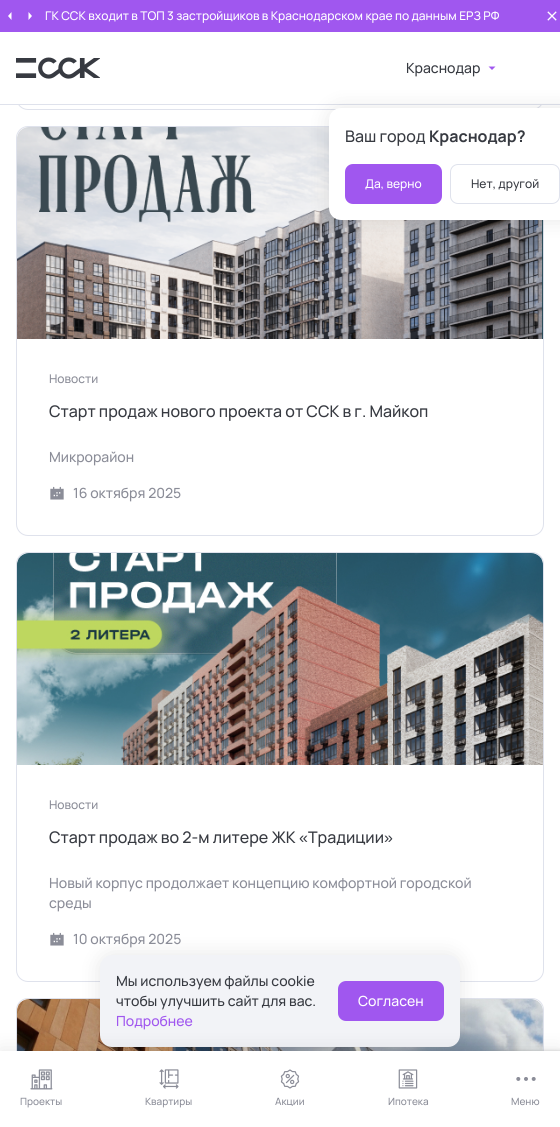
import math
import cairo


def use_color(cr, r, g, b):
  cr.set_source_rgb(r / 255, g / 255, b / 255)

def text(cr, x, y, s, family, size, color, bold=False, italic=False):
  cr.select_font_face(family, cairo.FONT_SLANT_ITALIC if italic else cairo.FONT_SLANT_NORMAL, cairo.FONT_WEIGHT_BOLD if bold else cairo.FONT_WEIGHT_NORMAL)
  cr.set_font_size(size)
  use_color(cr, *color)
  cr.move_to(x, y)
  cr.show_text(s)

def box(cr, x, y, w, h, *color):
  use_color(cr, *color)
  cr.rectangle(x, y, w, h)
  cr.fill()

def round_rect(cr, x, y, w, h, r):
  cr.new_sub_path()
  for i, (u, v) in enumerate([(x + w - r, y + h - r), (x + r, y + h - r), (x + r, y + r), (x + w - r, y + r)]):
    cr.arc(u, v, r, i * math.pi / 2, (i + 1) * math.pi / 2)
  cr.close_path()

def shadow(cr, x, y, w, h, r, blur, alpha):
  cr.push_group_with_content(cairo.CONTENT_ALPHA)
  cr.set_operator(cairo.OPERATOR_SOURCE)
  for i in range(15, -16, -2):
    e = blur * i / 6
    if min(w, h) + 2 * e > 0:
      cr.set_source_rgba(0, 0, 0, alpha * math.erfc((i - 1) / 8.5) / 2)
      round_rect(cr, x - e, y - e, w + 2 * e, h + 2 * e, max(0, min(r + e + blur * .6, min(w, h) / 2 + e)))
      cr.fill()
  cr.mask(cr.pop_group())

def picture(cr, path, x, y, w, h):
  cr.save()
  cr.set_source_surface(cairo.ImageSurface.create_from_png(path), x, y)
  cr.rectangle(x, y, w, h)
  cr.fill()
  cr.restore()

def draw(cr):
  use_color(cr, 255, 255, 255)
  cr.paint()
  round_rect(cr, 16.5, -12.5, 527, 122, 11.5)
  use_color(cr, 223, 226, 236)
  cr.set_line_width(1)
  cr.stroke()
  box(cr, 16, 32, 528, 72, 255, 255, 255)
  box(cr, 0, 104, 560, 1, 223, 226, 236)
  box(cr, 0, 0, 560, 32, 160, 87, 239)
  use_color(cr, 255, 255, 255)
  cr.new_path()
  cr.move_to(11.5, 12)
  cr.line_to(8, 16)
  cr.line_to(11.5, 20)
  cr.close_path()
  cr.move_to(28.5, 20)
  cr.line_to(32, 16)
  cr.line_to(28.5, 12)
  cr.close_path()
  cr.fill()
  picture(cr, "img_01.png", 547, 11, 10, 10)
  picture(cr, "img_02.png", 16, 57, 84, 22)
  use_color(cr, 160, 87, 239)
  cr.new_path()
  cr.move_to(488.5, 66.5)
  cr.line_to(492, 70)
  cr.line_to(495.5, 66.5)
  cr.close_path()
  cr.fill()
  round_rect(cr, 16.5, 126.5, 527, 409, 11.5)
  use_color(cr, 223, 226, 236)
  cr.stroke()
  picture(cr, "img_03.png", 17, 127, 526, 212)
  use_color(cr, 0, 0, 0)
  shadow(cr, 329, 108, 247, 112, 12, 10, 0.1)
  use_color(cr, 255, 255, 255)
  round_rect(cr, 329, 108, 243, 112, 12)
  cr.fill()
  use_color(cr, 160, 87, 239)
  round_rect(cr, 345, 164, 97, 40, 8)
  cr.fill()
  round_rect(cr, 450.5, 164.5, 109, 39, 7.5)
  use_color(cr, 223, 226, 236)
  cr.stroke()
  picture(cr, "img_04.png", 50, 486, 14, 14)
  round_rect(cr, 16.5, 552.5, 527, 429, 11.5)
  cr.stroke()
  picture(cr, "img_05.png", 17, 553, 526, 212)
  picture(cr, "img_04.png", 50, 932, 14, 14)
  round_rect(cr, 16.5, 998.5, 527, 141, 11.5)
  cr.stroke()
  picture(cr, "img_06.png", 17, 999, 526, 52)
  use_color(cr, 0, 0, 0)
  shadow(cr, 100, 955, 360, 92, 12, 10, 0.1)
  use_color(cr, 242, 243, 247)
  round_rect(cr, 100, 955, 360, 92, 12)
  cr.fill()
  use_color(cr, 160, 87, 239)
  round_rect(cr, 338, 981, 106, 40, 8)
  cr.fill()
  use_color(cr, 0, 0, 0)
  shadow(cr, 0, 1051, 560, 76, 0, 10, 0.1)
  use_color(cr, 128, 128, 128)
  shadow(cr, 490, 1053, 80, 60, 2, 2.5, 1)
  box(cr, 0, 1051, 560, 76, 255, 255, 255)
  picture(cr, "img_07.png", 30, 1069, 23, 21)
  picture(cr, "img_08.png", 159, 1069, 20, 20)
  picture(cr, "img_09.png", 280, 1069, 20, 20)
  picture(cr, "img_10.png", 398, 1069, 20, 20)
  picture(cr, "img_11.png", 516, 1077, 20, 4)
  text(cr, 45, 20, "ГК ССК входит в ТОП 3 застройщиков в Краснодарском крае по данным ЕРЗ РФ", "Manrope Medium", 12, (255, 255, 255))
  text(cr, 406, 73, "Краснодар", "Manrope Medium", 14, (55, 58, 65))
  text(cr, 345, 142, "Ваш город", "Manrope Medium", 16, (55, 58, 65))
  text(cr, 429, 142, "Краснодар?", "Manrope", 16, (55, 58, 65), bold=True)
  text(cr, 365, 188, "Да, верно", "Manrope Medium", 12, (255, 255, 255))
  text(cr, 471, 188, "Нет, другой", "Manrope Medium", 12, (55, 58, 65))
  text(cr, 49, 383, "Новости", "Manrope Medium", 12, (139, 141, 152))
  text(cr, 49, 417, "Старт продаж нового проекта от ССК в г. Майкоп", "Manrope Medium", 16, (55, 58, 65))
  text(cr, 49, 462, "Микрорайон", "Manrope Medium", 14, (139, 141, 152))
  text(cr, 73, 498, "16 октября 2025", "Manrope Medium", 14, (139, 141, 152))
  text(cr, 49, 809, "Новости", "Manrope Medium", 12, (139, 141, 152))
  text(cr, 49, 843, "Старт продаж во 2-м литере ЖК", "Manrope Medium", 16, (55, 58, 65))
  text(cr, 299, 843, "«", "Liberation Sans", 16, (55, 58, 65))
  text(cr, 308, 843, "Традиции", "Manrope Medium", 16, (55, 58, 65))
  text(cr, 384, 843, "»", "Liberation Sans", 16, (55, 58, 65))
  text(cr, 49, 888, "Новый корпус продолжает концепцию комфортной городской", "Manrope Medium", 14, (139, 141, 152))
  text(cr, 49, 908, "среды", "Manrope Medium", 14, (139, 141, 152))
  text(cr, 73, 944, "10 октября 2025", "Manrope Medium", 14, (139, 141, 152))
  text(cr, 116, 986, "Мы используем файлы cookie", "Manrope Medium", 14, (55, 58, 65))
  text(cr, 116, 1006, "чтобы улучшить сайт для вас.", "Manrope Medium", 14, (55, 58, 65))
  text(cr, 116, 1026, "Подробнее", "Manrope Medium", 14, (160, 87, 239))
  text(cr, 358, 1006, "Согласен", "Manrope Medium", 14, (255, 255, 255))
  text(cr, 20, 1105, "Проекты", "Manrope Medium", 10, (139, 141, 152))
  text(cr, 145, 1105, "Квартиры", "Manrope Medium", 10, (139, 141, 152))
  text(cr, 275, 1105, "Акции", "Manrope Medium", 10, (139, 141, 152))
  text(cr, 388, 1105, "Ипотека", "Manrope Medium", 10, (139, 141, 152))
  text(cr, 511, 1105, "Меню", "Manrope Medium", 10, (139, 141, 152))


surface = cairo.ImageSurface(cairo.FORMAT_RGB24, 560, 1127)
cr = cairo.Context(surface)
options = cairo.FontOptions()
options.set_hint_metrics(cairo.HINT_METRICS_OFF)
options.set_hint_style(cairo.HINT_STYLE_NONE)
cr.set_font_options(options)
cr.set_miter_limit(4)
draw(cr)
surface.write_to_png("out.png")
